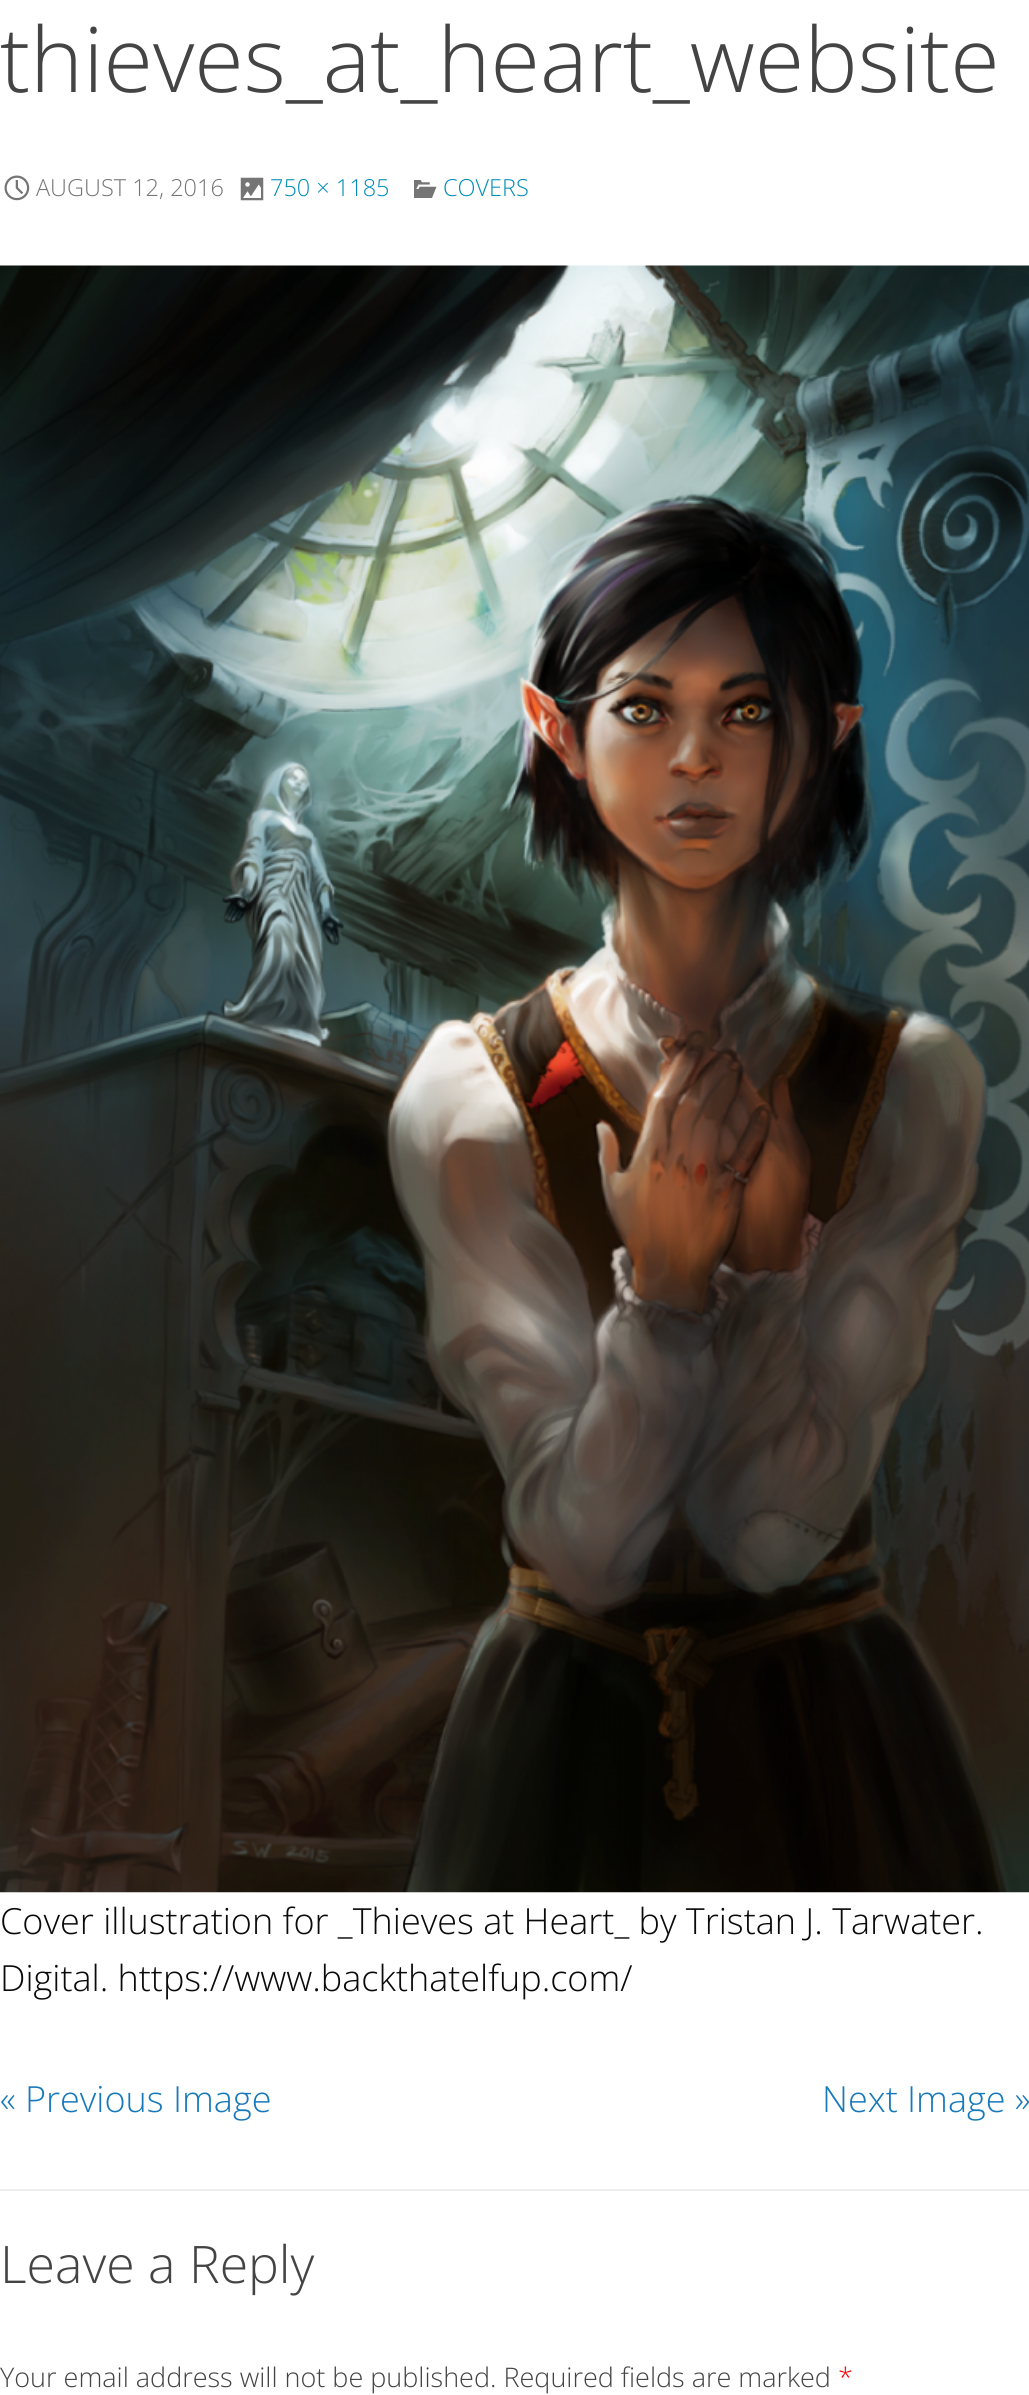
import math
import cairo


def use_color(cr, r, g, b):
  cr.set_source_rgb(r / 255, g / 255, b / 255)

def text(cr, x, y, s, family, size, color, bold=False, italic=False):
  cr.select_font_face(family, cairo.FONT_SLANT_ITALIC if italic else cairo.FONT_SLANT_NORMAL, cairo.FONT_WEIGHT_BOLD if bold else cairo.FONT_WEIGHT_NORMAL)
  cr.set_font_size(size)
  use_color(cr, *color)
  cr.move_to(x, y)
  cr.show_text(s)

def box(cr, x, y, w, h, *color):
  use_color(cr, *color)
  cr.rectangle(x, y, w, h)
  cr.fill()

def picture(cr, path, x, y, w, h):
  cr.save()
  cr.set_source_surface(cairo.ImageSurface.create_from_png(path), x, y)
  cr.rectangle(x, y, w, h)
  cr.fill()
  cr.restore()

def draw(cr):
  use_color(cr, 255, 255, 255)
  cr.paint()
  box(cr, 0, 2189, 1029, 2, 237, 237, 237)
  picture(cr, "img_01.png", 4, 175, 26, 26)
  picture(cr, "img_02.png", 240, 177, 24, 24)
  picture(cr, "img_03.png", 414, 180, 23, 18)
  picture(cr, "img_04.png", 0, 265, 1029, 1628)
  text(cr, 0, 92, "thieves_at_heart_website", "Open Sans Light", 90, (68, 68, 68))
  text(cr, 36, 196, "AUGUST 12, 2016", "Open Sans Light", 23.5, (117, 117, 117))
  text(cr, 270, 196, "750 × 1185", "Open Sans Light", 23.5, (0, 140, 186))
  text(cr, 443, 196, "COVERS", "Open Sans Light", 23.5, (0, 140, 186))
  text(cr, 0, 1934, "Cover illustration for _Thieves at Heart_ by Tristan J. Tarwater.", "Open Sans Light", 36, (10, 10, 10))
  text(cr, 0, 1991, "Digital. https://www.backthatelfup.com/", "Open Sans Light", 36, (10, 10, 10))
  text(cr, 0, 2112, "« Previous Image", "Open Sans Light", 36, (23, 121, 186))
  text(cr, 822, 2112, "Next Image »", "Open Sans Light", 36, (23, 121, 186))
  text(cr, 0, 2283, "Leave a Reply", "Open Sans Light", 51.75, (68, 68, 68))
  text(cr, 0, 2387, "Your email address will not be published. Required fields are marked", "Open Sans Light", 27, (68, 68, 68))
  text(cr, 838, 2387, "*", "Open Sans Light", 27, (255, 0, 0))


surface = cairo.ImageSurface(cairo.FORMAT_RGB24, 1029, 2395)
cr = cairo.Context(surface)
options = cairo.FontOptions()
options.set_hint_metrics(cairo.HINT_METRICS_OFF)
options.set_hint_style(cairo.HINT_STYLE_NONE)
cr.set_font_options(options)
cr.set_miter_limit(4)
draw(cr)
surface.write_to_png("out.png")
